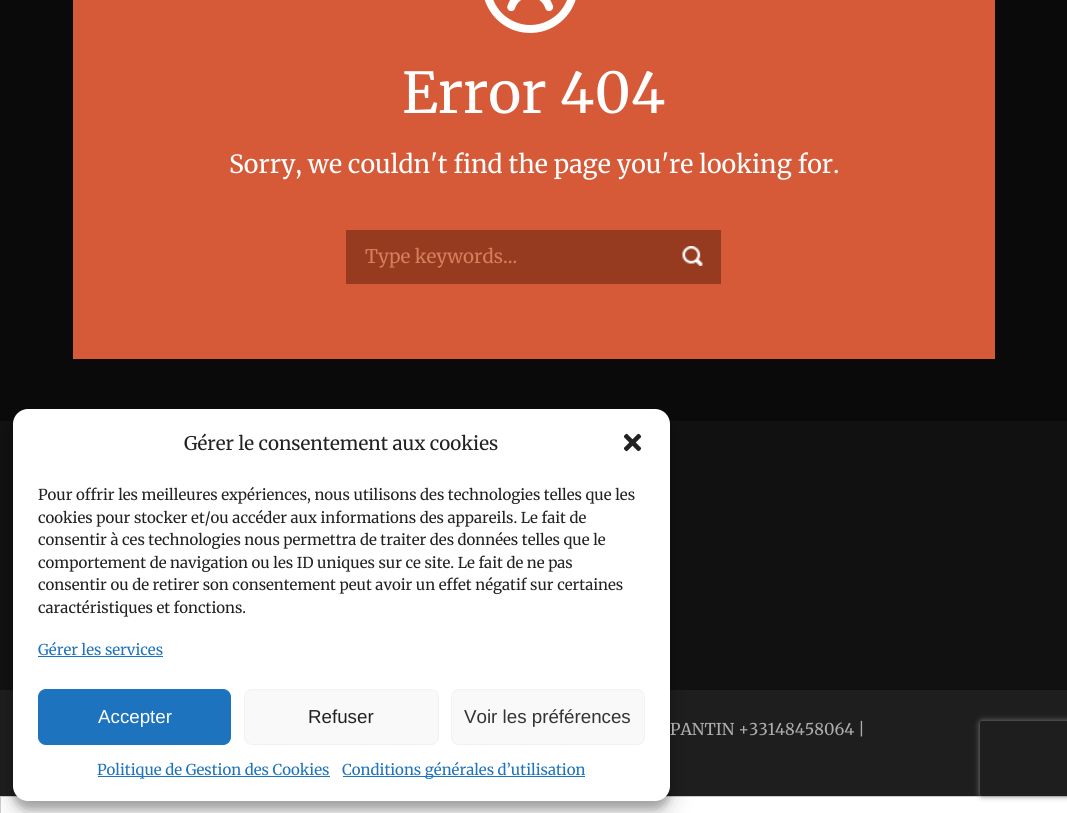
import math
import cairo


def use_color(cr, r, g, b):
  cr.set_source_rgb(r / 255, g / 255, b / 255)

def text(cr, x, y, s, family, size, color, bold=False, italic=False):
  cr.select_font_face(family, cairo.FONT_SLANT_ITALIC if italic else cairo.FONT_SLANT_NORMAL, cairo.FONT_WEIGHT_BOLD if bold else cairo.FONT_WEIGHT_NORMAL)
  cr.set_font_size(size)
  use_color(cr, *color)
  cr.move_to(x, y)
  cr.show_text(s)

def box(cr, x, y, w, h, *color):
  use_color(cr, *color)
  cr.rectangle(x, y, w, h)
  cr.fill()

def round_rect(cr, x, y, w, h, r):
  cr.new_sub_path()
  for i, (u, v) in enumerate([(x + w - r, y + h - r), (x + r, y + h - r), (x + r, y + r), (x + w - r, y + r)]):
    cr.arc(u, v, r, i * math.pi / 2, (i + 1) * math.pi / 2)
  cr.close_path()

def shadow(cr, x, y, w, h, r, blur, alpha):
  cr.push_group_with_content(cairo.CONTENT_ALPHA)
  cr.set_operator(cairo.OPERATOR_SOURCE)
  for i in range(15, -16, -2):
    e = blur * i / 6
    if min(w, h) + 2 * e > 0:
      cr.set_source_rgba(0, 0, 0, alpha * math.erfc((i - 1) / 8.5) / 2)
      round_rect(cr, x - e, y - e, w + 2 * e, h + 2 * e, max(0, min(r + e + blur * .6, min(w, h) / 2 + e)))
      cr.fill()
  cr.mask(cr.pop_group())

def picture(cr, path, x, y, w, h):
  cr.save()
  cr.set_source_surface(cairo.ImageSurface.create_from_png(path), x, y)
  cr.rectangle(x, y, w, h)
  cr.fill()
  cr.restore()

def draw(cr):
  use_color(cr, 255, 255, 255)
  cr.paint()
  box(cr, 0, 0, 1067, 421, 10, 10, 10)
  box(cr, 73, 0, 922, 359, 214, 89, 56)
  picture(cr, "img_01.png", 484, 0, 92, 33)
  box(cr, 346, 230, 375, 54, 150, 58, 32)
  picture(cr, "img_02.png", 682, 246, 21, 20)
  box(cr, 0, 421, 1067, 269, 17, 17, 17)
  box(cr, 0, 690, 1067, 106, 30, 30, 30)
  cr.rectangle(0.5, 796.5, 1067, 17)
  use_color(cr, 205, 205, 205)
  cr.set_line_width(1)
  cr.stroke()
  use_color(cr, 0, 0, 0)
  shadow(cr, 13, 416, 657, 393, 15, 4, 0.23)
  shadow(cr, 13, 421, 657, 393, 15, 12.5, 0.19)
  use_color(cr, 255, 255, 255)
  round_rect(cr, 13, 409, 657, 392, 15)
  cr.fill()
  picture(cr, "img_03.png", 623, 433, 19, 19)
  box(cr, 38, 656, 125, 1, 30, 115, 190)
  round_rect(cr, 38.5, 689.5, 192, 55, 7.5)
  cr.fill_preserve()
  cr.stroke()
  use_color(cr, 249, 249, 249)
  round_rect(cr, 244.5, 689.5, 194, 55, 7.5)
  cr.fill_preserve()
  use_color(cr, 242, 242, 242)
  cr.stroke()
  use_color(cr, 249, 249, 249)
  round_rect(cr, 451.5, 689.5, 193, 55, 7.5)
  cr.fill_preserve()
  use_color(cr, 242, 242, 242)
  cr.stroke()
  box(cr, 98, 776, 232, 1, 30, 115, 190)
  box(cr, 343, 776, 242, 1, 30, 115, 190)
  cr.save()
  cr.set_fill_rule(cairo.FILL_RULE_EVEN_ODD)
  cr.new_path()
  cr.move_to(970, 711)
  cr.line_to(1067, 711)
  cr.line_to(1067, 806)
  cr.line_to(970, 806)
  cr.close_path()
  cr.move_to(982.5, 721)
  cr.line_to(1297.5, 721)
  cr.curve_to(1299, 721, 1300, 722, 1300, 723.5)
  cr.line_to(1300, 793.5)
  cr.curve_to(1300, 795, 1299, 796, 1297.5, 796)
  cr.line_to(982.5, 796)
  cr.curve_to(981, 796, 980, 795, 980, 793.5)
  cr.line_to(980, 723.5)
  cr.curve_to(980, 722, 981, 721, 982.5, 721)
  cr.close_path()
  cr.clip()
  use_color(cr, 128, 128, 128)
  shadow(cr, 980, 721, 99, 75, 2.5, 3, 1)
  cr.restore()
  text(cr, 402, 113, "Error 404", "Merriweather", 56.25, (255, 255, 255))
  text(cr, 229, 173, "Sorry, we couldn't find the page you're looking for.", "Merriweather", 25, (255, 255, 255))
  text(cr, 365, 263, "Type keywords...", "Merriweather", 18.75, (213, 127, 92))
  text(cr, 670, 735, "PANTIN +33148458064 |", "Merriweather", 16.25, (173, 173, 173))
  text(cr, 184, 450, "Gérer le consentement aux cookies", "Merriweather", 18.75, (34, 34, 34))
  text(cr, 38, 500, "Pour offrir les meilleures expériences, nous utilisons des technologies telles que les", "Merriweather", 15, (34, 34, 34))
  text(cr, 38, 523, "cookies pour stocker et/ou accéder aux informations des appareils. Le fait de", "Merriweather", 15, (34, 34, 34))
  text(cr, 38, 545, "consentir à ces technologies nous permettra de traiter des données telles que le", "Merriweather", 15, (34, 34, 34))
  text(cr, 38, 568, "comportement de navigation ou les ID uniques sur ce site. Le fait de ne pas", "Merriweather", 15, (34, 34, 34))
  text(cr, 38, 590, "consentir ou de retirer son consentement peut avoir un effet négatif sur certaines", "Merriweather", 15, (34, 34, 34))
  text(cr, 38, 613, "caractéristiques et fonctions.", "Merriweather", 15, (34, 34, 34))
  text(cr, 38, 655, "Gérer les services", "Merriweather", 15, (30, 115, 190))
  text(cr, 98, 723, "Accepter", "Liberation Sans", 18.75, (255, 255, 255))
  text(cr, 308, 723, "Refuser", "Liberation Sans", 18.75, (34, 34, 34))
  text(cr, 464, 723, "Voir les préférences", "Liberation Sans", 18.75, (51, 51, 51))
  text(cr, 97, 775, "Politique de Gestion des Cookies", "Merriweather", 15, (30, 115, 190))
  text(cr, 342, 775, "Conditions générales d’utilisation", "Merriweather", 15, (30, 115, 190))


surface = cairo.ImageSurface(cairo.FORMAT_RGB24, 1067, 813)
cr = cairo.Context(surface)
options = cairo.FontOptions()
options.set_hint_metrics(cairo.HINT_METRICS_OFF)
options.set_hint_style(cairo.HINT_STYLE_NONE)
cr.set_font_options(options)
cr.set_miter_limit(4)
draw(cr)
surface.write_to_png("out.png")
